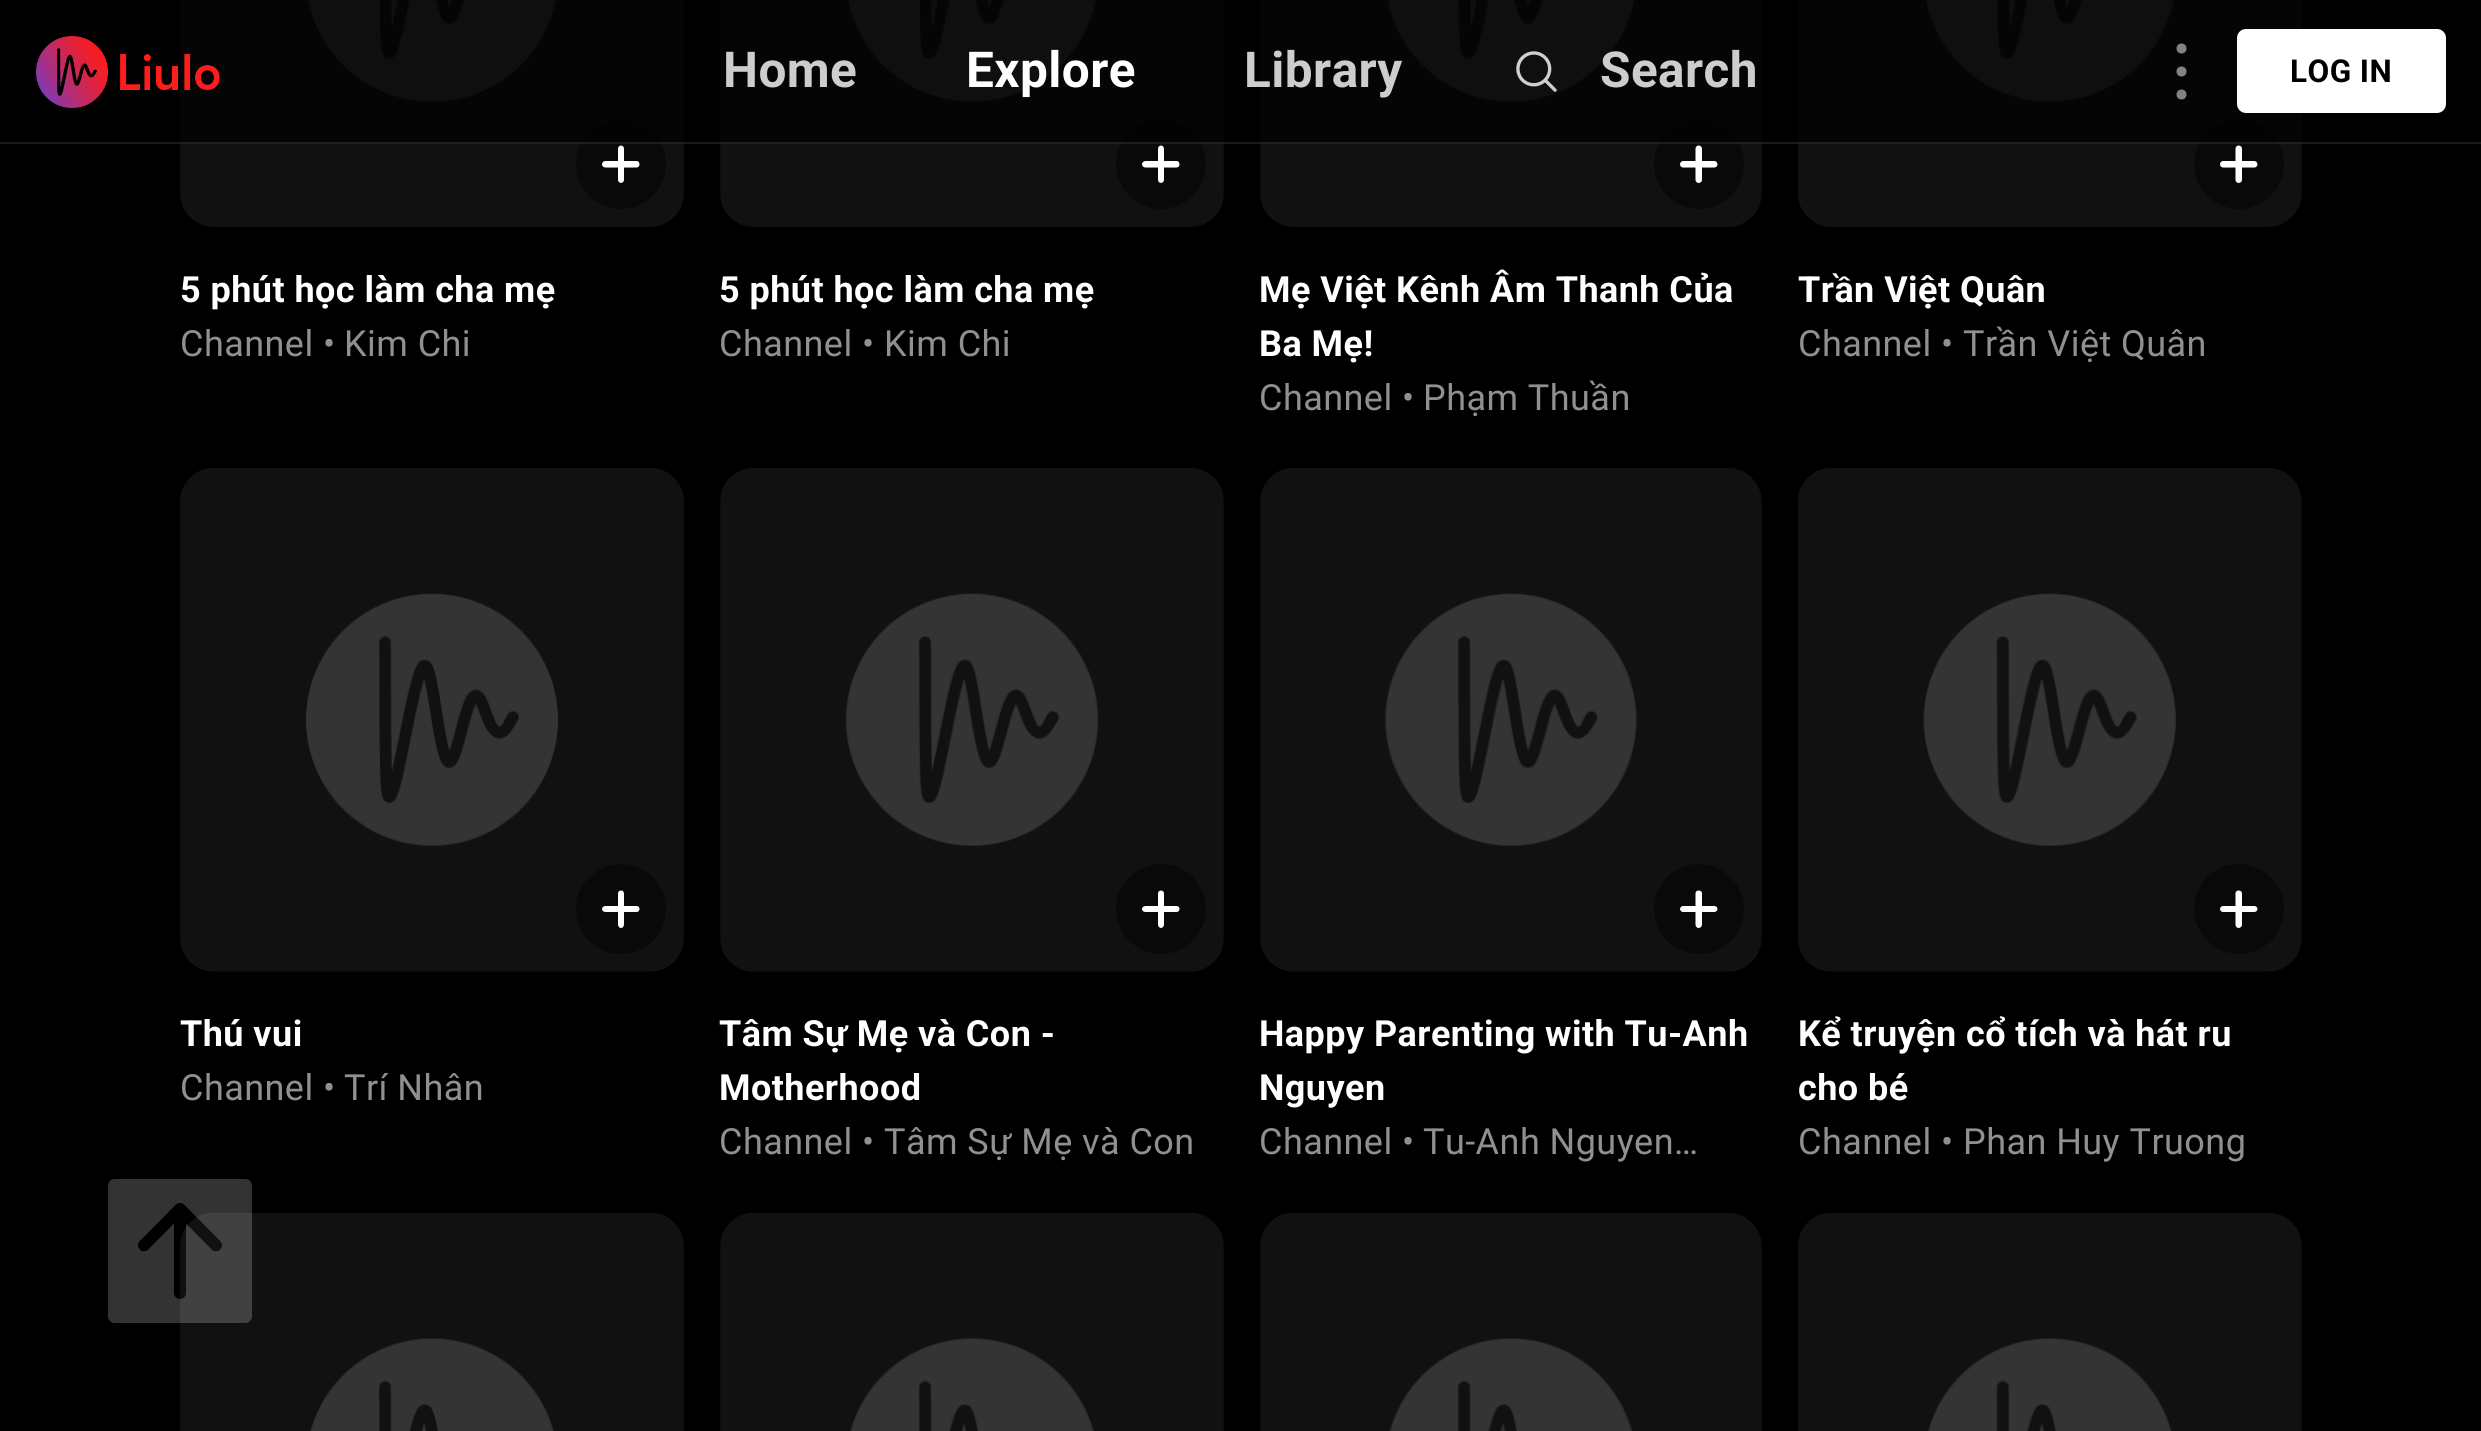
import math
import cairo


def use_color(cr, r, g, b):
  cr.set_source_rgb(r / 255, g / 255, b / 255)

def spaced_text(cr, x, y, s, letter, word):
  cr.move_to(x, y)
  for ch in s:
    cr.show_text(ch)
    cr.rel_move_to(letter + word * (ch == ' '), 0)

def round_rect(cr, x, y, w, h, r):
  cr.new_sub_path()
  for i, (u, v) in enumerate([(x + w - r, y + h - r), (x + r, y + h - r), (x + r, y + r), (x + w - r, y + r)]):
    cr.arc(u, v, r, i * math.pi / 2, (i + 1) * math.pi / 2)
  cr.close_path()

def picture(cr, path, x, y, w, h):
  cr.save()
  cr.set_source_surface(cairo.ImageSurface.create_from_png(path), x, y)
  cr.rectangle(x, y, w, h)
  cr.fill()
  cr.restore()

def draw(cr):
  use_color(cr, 0, 0, 0)
  cr.paint()
  picture(cr, "img_03.png", 180, 0, 504, 227)
  use_color(cr, 9, 9, 9)
  cr.arc(621, 164, 45, 0, 2 * math.pi)
  cr.fill()
  picture(cr, "img_04.png", 720, 0, 504, 227)
  cr.arc(1161, 164, 45, 0, 2 * math.pi)
  cr.fill()
  picture(cr, "img_05.png", 1260, 0, 502, 227)
  cr.arc(1699, 164, 45, 0, 2 * math.pi)
  cr.fill()
  picture(cr, "img_06.png", 1798, 0, 504, 227)
  cr.arc(2239, 164, 45, 0, 2 * math.pi)
  cr.fill()
  cr.set_source_rgba(0, 0, 0, 0.7)
  cr.rectangle(180, 0, 2122, 144)
  cr.fill()
  cr.set_source_rgba(1, 1, 1, 0.1)
  cr.rectangle(0, 142, 2481, 2)
  cr.fill()
  picture(cr, "img_01.png", 36, 36, 184, 72)
  picture(cr, "img_02.png", 1516, 51, 41, 41)
  use_color(cr, 130, 130, 130)
  cr.arc(2181.5, 48.5, 5, 0, 2 * math.pi)
  cr.fill()
  cr.arc(2181.5, 71.5, 5, 0, 2 * math.pi)
  cr.fill()
  cr.arc(2181.5, 94.5, 5, 0, 2 * math.pi)
  cr.fill()
  use_color(cr, 255, 255, 255)
  round_rect(cr, 2237, 29, 209, 84, 9)
  cr.fill()
  cr.new_path()
  cr.move_to(618, 148.5)
  cr.curve_to(618, 147, 619.5, 145.5, 621, 145.5)
  cr.curve_to(622.5, 145.5, 624, 147, 624, 148.5)
  cr.line_to(624, 180)
  cr.curve_to(624, 181.5, 622.5, 183, 621, 183)
  cr.curve_to(619.5, 183, 618, 181.5, 618, 180)
  cr.close_path()
  cr.fill()
  cr.new_path()
  cr.move_to(636.5, 161)
  cr.curve_to(638.5, 161, 639.5, 162.5, 639.5, 164.5)
  cr.curve_to(639.5, 166, 638.5, 167.5, 636.5, 167.5)
  cr.line_to(605.5, 167.5)
  cr.curve_to(603.5, 167.5, 602, 166, 602, 164.5)
  cr.curve_to(602, 162.5, 603.5, 161, 605.5, 161)
  cr.close_path()
  cr.fill()
  cr.new_path()
  cr.move_to(1158, 148.5)
  cr.curve_to(1158, 147, 1159.5, 145.5, 1161, 145.5)
  cr.curve_to(1162.5, 145.5, 1164, 147, 1164, 148.5)
  cr.line_to(1164, 180)
  cr.curve_to(1164, 181.5, 1162.5, 183, 1161, 183)
  cr.curve_to(1159.5, 183, 1158, 181.5, 1158, 180)
  cr.close_path()
  cr.fill()
  cr.new_path()
  cr.move_to(1176.5, 161)
  cr.curve_to(1178.5, 161, 1179.5, 162.5, 1179.5, 164.5)
  cr.curve_to(1179.5, 166, 1178.5, 167.5, 1176.5, 167.5)
  cr.line_to(1145.5, 167.5)
  cr.curve_to(1143.5, 167.5, 1142, 166, 1142, 164.5)
  cr.curve_to(1142, 162.5, 1143.5, 161, 1145.5, 161)
  cr.close_path()
  cr.fill()
  cr.new_path()
  cr.move_to(1695.5, 148.5)
  cr.curve_to(1695.5, 147, 1697, 145.5, 1698.5, 145.5)
  cr.curve_to(1700.5, 145.5, 1702, 147, 1702, 148.5)
  cr.line_to(1702, 180)
  cr.curve_to(1702, 181.5, 1700.5, 183, 1698.5, 183)
  cr.curve_to(1697, 183, 1695.5, 181.5, 1695.5, 180)
  cr.close_path()
  cr.fill()
  cr.new_path()
  cr.move_to(1714.5, 161)
  cr.curve_to(1716, 161, 1717.5, 162.5, 1717.5, 164.5)
  cr.curve_to(1717.5, 166, 1716, 167.5, 1714.5, 167.5)
  cr.line_to(1683, 167.5)
  cr.curve_to(1681.5, 167.5, 1680, 166, 1680, 164.5)
  cr.curve_to(1680, 162.5, 1681.5, 161, 1683, 161)
  cr.close_path()
  cr.fill()
  cr.new_path()
  cr.move_to(2235.5, 148.5)
  cr.curve_to(2235.5, 147, 2237, 145.5, 2238.5, 145.5)
  cr.curve_to(2240.5, 145.5, 2242, 147, 2242, 148.5)
  cr.line_to(2242, 180)
  cr.curve_to(2242, 181.5, 2240.5, 183, 2238.5, 183)
  cr.curve_to(2237, 183, 2235.5, 181.5, 2235.5, 180)
  cr.close_path()
  cr.fill()
  cr.new_path()
  cr.move_to(2254.5, 161)
  cr.curve_to(2256, 161, 2257.5, 162.5, 2257.5, 164.5)
  cr.curve_to(2257.5, 166, 2256, 167.5, 2254.5, 167.5)
  cr.line_to(2223, 167.5)
  cr.curve_to(2221.5, 167.5, 2220, 166, 2220, 164.5)
  cr.curve_to(2220, 162.5, 2221.5, 161, 2223, 161)
  cr.close_path()
  cr.fill()
  picture(cr, "img_07.png", 180, 468, 504, 504)
  use_color(cr, 9, 9, 9)
  cr.arc(621, 909, 45, 0, 2 * math.pi)
  cr.fill()
  use_color(cr, 255, 255, 255)
  cr.new_path()
  cr.move_to(618, 893.5)
  cr.curve_to(618, 891.5, 619.5, 890.5, 621, 890.5)
  cr.curve_to(622.5, 890.5, 624, 891.5, 624, 893.5)
  cr.line_to(624, 924.5)
  cr.curve_to(624, 926.5, 622.5, 928, 621, 928)
  cr.curve_to(619.5, 928, 618, 926.5, 618, 924.5)
  cr.close_path()
  cr.fill()
  cr.new_path()
  cr.move_to(636.5, 906)
  cr.curve_to(638.5, 906, 639.5, 907.5, 639.5, 909)
  cr.curve_to(639.5, 910.5, 638.5, 912, 636.5, 912)
  cr.line_to(605.5, 912)
  cr.curve_to(603.5, 912, 602, 910.5, 602, 909)
  cr.curve_to(602, 907.5, 603.5, 906, 605.5, 906)
  cr.close_path()
  cr.fill()
  picture(cr, "img_08.png", 720, 468, 504, 504)
  use_color(cr, 9, 9, 9)
  cr.arc(1161, 909, 45, 0, 2 * math.pi)
  cr.fill()
  use_color(cr, 255, 255, 255)
  cr.new_path()
  cr.move_to(1158, 893.5)
  cr.curve_to(1158, 891.5, 1159.5, 890.5, 1161, 890.5)
  cr.curve_to(1162.5, 890.5, 1164, 891.5, 1164, 893.5)
  cr.line_to(1164, 924.5)
  cr.curve_to(1164, 926.5, 1162.5, 928, 1161, 928)
  cr.curve_to(1159.5, 928, 1158, 926.5, 1158, 924.5)
  cr.close_path()
  cr.fill()
  cr.new_path()
  cr.move_to(1176.5, 906)
  cr.curve_to(1178.5, 906, 1179.5, 907.5, 1179.5, 909)
  cr.curve_to(1179.5, 910.5, 1178.5, 912, 1176.5, 912)
  cr.line_to(1145.5, 912)
  cr.curve_to(1143.5, 912, 1142, 910.5, 1142, 909)
  cr.curve_to(1142, 907.5, 1143.5, 906, 1145.5, 906)
  cr.close_path()
  cr.fill()
  picture(cr, "img_09.png", 1260, 468, 502, 504)
  use_color(cr, 9, 9, 9)
  cr.arc(1699, 909, 45, 0, 2 * math.pi)
  cr.fill()
  use_color(cr, 255, 255, 255)
  cr.new_path()
  cr.move_to(1695.5, 893.5)
  cr.curve_to(1695.5, 891.5, 1697, 890.5, 1698.5, 890.5)
  cr.curve_to(1700.5, 890.5, 1702, 891.5, 1702, 893.5)
  cr.line_to(1702, 924.5)
  cr.curve_to(1702, 926.5, 1700.5, 928, 1698.5, 928)
  cr.curve_to(1697, 928, 1695.5, 926.5, 1695.5, 924.5)
  cr.close_path()
  cr.fill()
  cr.new_path()
  cr.move_to(1714.5, 906)
  cr.curve_to(1716, 906, 1717.5, 907.5, 1717.5, 909)
  cr.curve_to(1717.5, 910.5, 1716, 912, 1714.5, 912)
  cr.line_to(1683, 912)
  cr.curve_to(1681.5, 912, 1680, 910.5, 1680, 909)
  cr.curve_to(1680, 907.5, 1681.5, 906, 1683, 906)
  cr.close_path()
  cr.fill()
  picture(cr, "img_10.png", 1798, 468, 504, 504)
  use_color(cr, 9, 9, 9)
  cr.arc(2239, 909, 45, 0, 2 * math.pi)
  cr.fill()
  use_color(cr, 255, 255, 255)
  cr.new_path()
  cr.move_to(2235.5, 893.5)
  cr.curve_to(2235.5, 891.5, 2237, 890.5, 2238.5, 890.5)
  cr.curve_to(2240.5, 890.5, 2242, 891.5, 2242, 893.5)
  cr.line_to(2242, 924.5)
  cr.curve_to(2242, 926.5, 2240.5, 928, 2238.5, 928)
  cr.curve_to(2237, 928, 2235.5, 926.5, 2235.5, 924.5)
  cr.close_path()
  cr.fill()
  cr.new_path()
  cr.move_to(2254.5, 906)
  cr.curve_to(2256, 906, 2257.5, 907.5, 2257.5, 909)
  cr.curve_to(2257.5, 910.5, 2256, 912, 2254.5, 912)
  cr.line_to(2223, 912)
  cr.curve_to(2221.5, 912, 2220, 910.5, 2220, 909)
  cr.curve_to(2220, 907.5, 2221.5, 906, 2223, 906)
  cr.close_path()
  cr.fill()
  picture(cr, "img_11.png", 180, 1213, 504, 218)
  picture(cr, "img_12.png", 720, 1213, 504, 218)
  picture(cr, "img_13.png", 1260, 1213, 502, 218)
  picture(cr, "img_14.png", 1798, 1213, 504, 218)
  picture(cr, "img_15.png", 108, 1179, 144, 144)
  cr.select_font_face("Roboto", cairo.FONT_SLANT_NORMAL, cairo.FONT_WEIGHT_BOLD)
  cr.set_font_size(49.5)
  use_color(cr, 205, 205, 205)
  spaced_text(cr, 723, 87, "Home", 0.45, 0)
  use_color(cr, 255, 255, 255)
  spaced_text(cr, 966, 87, "Explore", 0.45, 0)
  use_color(cr, 205, 205, 205)
  spaced_text(cr, 1244, 87, "Library", 0.45, 0)
  spaced_text(cr, 1600, 87, "Search", 0.45, 0)
  cr.set_font_size(31.5)
  use_color(cr, 0, 0, 0)
  spaced_text(cr, 2290, 82, "LOG IN", 0.45, 0)
  cr.set_font_size(36)
  use_color(cr, 255, 255, 255)
  spaced_text(cr, 180, 302, "5 phút học làm cha mẹ", 0.45, 0)
  cr.select_font_face("Roboto")
  use_color(cr, 144, 144, 144)
  spaced_text(cr, 180, 356, "Channel", 0.45, 0)
  spaced_text(cr, 323, 356, "•", 0.45, 0)
  spaced_text(cr, 344, 356, "Kim Chi", 0.45, 0)
  cr.select_font_face("Roboto", cairo.FONT_SLANT_NORMAL, cairo.FONT_WEIGHT_BOLD)
  use_color(cr, 255, 255, 255)
  spaced_text(cr, 719, 302, "5 phút học làm cha mẹ", 0.45, 0)
  cr.select_font_face("Roboto")
  use_color(cr, 144, 144, 144)
  spaced_text(cr, 719, 356, "Channel", 0.45, 0)
  spaced_text(cr, 862, 356, "•", 0.45, 0)
  spaced_text(cr, 884, 356, "Kim Chi", 0.45, 0)
  cr.select_font_face("Roboto", cairo.FONT_SLANT_NORMAL, cairo.FONT_WEIGHT_BOLD)
  use_color(cr, 255, 255, 255)
  spaced_text(cr, 1259, 302, "Mẹ Việt Kênh Âm Thanh Của", 0.45, 0)
  spaced_text(cr, 1259, 356, "Ba Mẹ!", 0.45, 0)
  cr.select_font_face("Roboto")
  use_color(cr, 144, 144, 144)
  spaced_text(cr, 1259, 410, "Channel", 0.45, 0)
  spaced_text(cr, 1402, 410, "•", 0.45, 0)
  spaced_text(cr, 1423, 410, "Phạm Thuần", 0.45, 0)
  cr.select_font_face("Roboto", cairo.FONT_SLANT_NORMAL, cairo.FONT_WEIGHT_BOLD)
  use_color(cr, 255, 255, 255)
  spaced_text(cr, 1798, 302, "Trần Việt Quân", 0.45, 0)
  cr.select_font_face("Roboto")
  use_color(cr, 144, 144, 144)
  spaced_text(cr, 1798, 356, "Channel", 0.45, 0)
  spaced_text(cr, 1941, 356, "•", 0.45, 0)
  spaced_text(cr, 1963, 356, "Trần Việt Quân", 0.45, 0)
  cr.select_font_face("Roboto", cairo.FONT_SLANT_NORMAL, cairo.FONT_WEIGHT_BOLD)
  use_color(cr, 255, 255, 255)
  spaced_text(cr, 180, 1046, "Thú vui", 0.45, 0)
  cr.select_font_face("Roboto")
  use_color(cr, 144, 144, 144)
  spaced_text(cr, 180, 1100, "Channel", 0.45, 0)
  spaced_text(cr, 323, 1100, "•", 0.45, 0)
  spaced_text(cr, 344, 1100, "Trí Nhân", 0.45, 0)
  cr.select_font_face("Roboto", cairo.FONT_SLANT_NORMAL, cairo.FONT_WEIGHT_BOLD)
  use_color(cr, 255, 255, 255)
  spaced_text(cr, 719, 1046, "Tâm Sự Mẹ và Con -", 0.45, 0)
  spaced_text(cr, 719, 1100, "Motherhood", 0.45, 0)
  cr.select_font_face("Roboto")
  use_color(cr, 144, 144, 144)
  spaced_text(cr, 719, 1154, "Channel", 0.45, 0)
  spaced_text(cr, 862, 1154, "•", 0.45, 0)
  spaced_text(cr, 884, 1154, "Tâm Sự Mẹ và Con", 0.45, 0)
  cr.select_font_face("Roboto", cairo.FONT_SLANT_NORMAL, cairo.FONT_WEIGHT_BOLD)
  use_color(cr, 255, 255, 255)
  spaced_text(cr, 1259, 1046, "Happy Parenting with Tu-Anh", 0.45, 0)
  spaced_text(cr, 1259, 1100, "Nguyen", 0.45, 0)
  cr.select_font_face("Roboto")
  use_color(cr, 144, 144, 144)
  spaced_text(cr, 1259, 1154, "Channel", 0.45, 0)
  spaced_text(cr, 1402, 1154, "•", 0.45, 0)
  spaced_text(cr, 1423, 1154, "Tu-Anh Nguyen…", 0.45, 0)
  cr.select_font_face("Roboto", cairo.FONT_SLANT_NORMAL, cairo.FONT_WEIGHT_BOLD)
  use_color(cr, 255, 255, 255)
  spaced_text(cr, 1798, 1046, "Kể truyện cổ tích và hát ru", 0.45, 0)
  spaced_text(cr, 1798, 1100, "cho bé", 0.45, 0)
  cr.select_font_face("Roboto")
  use_color(cr, 144, 144, 144)
  spaced_text(cr, 1798, 1154, "Channel", 0.45, 0)
  spaced_text(cr, 1941, 1154, "•", 0.45, 0)
  spaced_text(cr, 1963, 1154, "Phan Huy Truong", 0.45, 0)


surface = cairo.ImageSurface(cairo.FORMAT_RGB24, 2481, 1431)
cr = cairo.Context(surface)
options = cairo.FontOptions()
options.set_hint_metrics(cairo.HINT_METRICS_OFF)
options.set_hint_style(cairo.HINT_STYLE_NONE)
cr.set_font_options(options)
cr.set_miter_limit(4)
draw(cr)
surface.write_to_png("out.png")
